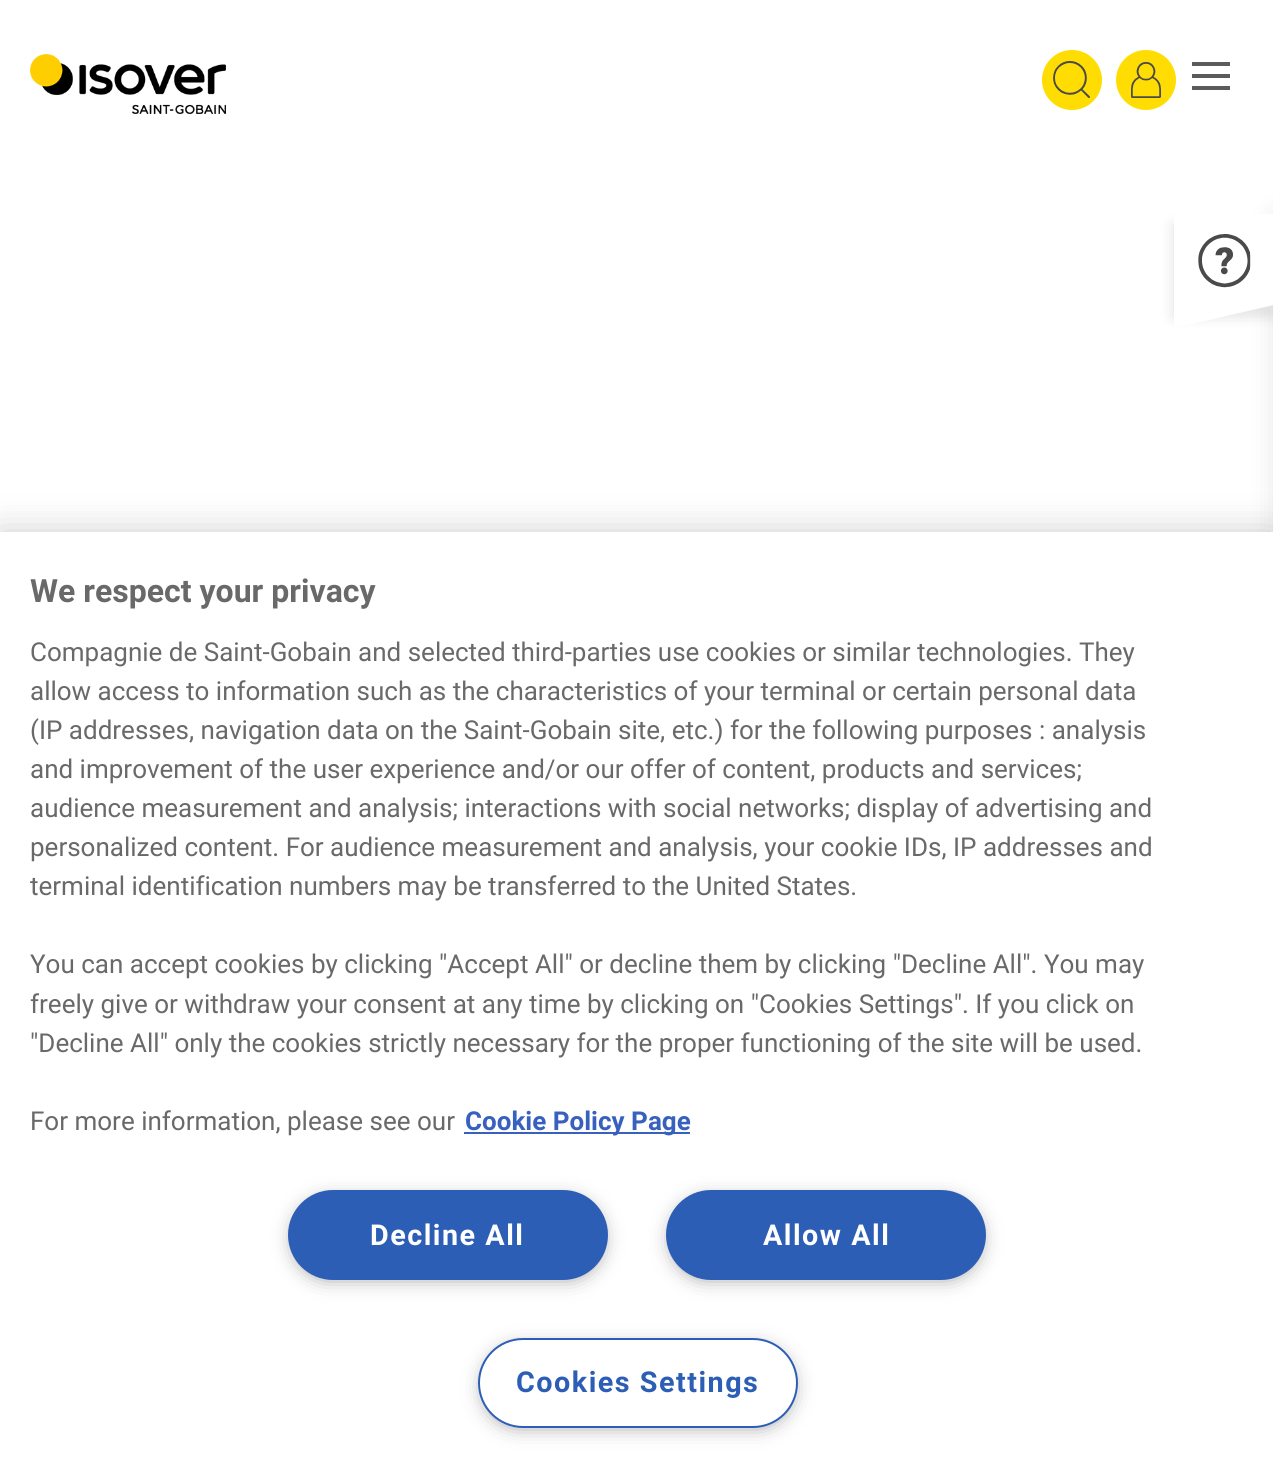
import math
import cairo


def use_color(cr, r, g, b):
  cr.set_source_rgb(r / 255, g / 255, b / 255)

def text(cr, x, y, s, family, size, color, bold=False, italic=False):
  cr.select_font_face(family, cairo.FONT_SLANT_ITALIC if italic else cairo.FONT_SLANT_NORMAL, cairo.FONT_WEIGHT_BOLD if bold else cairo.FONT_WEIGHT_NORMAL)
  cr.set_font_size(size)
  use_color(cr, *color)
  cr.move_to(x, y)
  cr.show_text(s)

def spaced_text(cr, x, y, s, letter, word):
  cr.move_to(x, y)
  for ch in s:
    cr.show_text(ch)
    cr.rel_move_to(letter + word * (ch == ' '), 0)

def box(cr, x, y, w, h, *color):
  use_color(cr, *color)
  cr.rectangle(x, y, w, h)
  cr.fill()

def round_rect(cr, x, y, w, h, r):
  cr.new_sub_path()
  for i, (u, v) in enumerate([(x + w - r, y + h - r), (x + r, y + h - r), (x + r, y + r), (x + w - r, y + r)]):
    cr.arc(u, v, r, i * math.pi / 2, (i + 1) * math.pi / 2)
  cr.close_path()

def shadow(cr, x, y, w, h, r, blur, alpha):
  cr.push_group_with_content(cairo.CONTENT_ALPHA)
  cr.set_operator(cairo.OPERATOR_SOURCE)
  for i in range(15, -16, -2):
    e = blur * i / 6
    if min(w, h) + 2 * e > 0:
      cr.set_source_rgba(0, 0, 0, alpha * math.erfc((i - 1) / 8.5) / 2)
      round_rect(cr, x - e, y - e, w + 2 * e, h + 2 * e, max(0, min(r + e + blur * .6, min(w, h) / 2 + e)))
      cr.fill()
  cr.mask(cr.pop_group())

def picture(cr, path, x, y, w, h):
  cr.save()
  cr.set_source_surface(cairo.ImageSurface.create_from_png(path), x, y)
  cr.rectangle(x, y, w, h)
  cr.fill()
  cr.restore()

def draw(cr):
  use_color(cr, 255, 255, 255)
  cr.paint()
  picture(cr, "img_01.png", 30, 54, 196, 60)
  use_color(cr, 255, 221, 3)
  cr.arc(1072, 80, 30, 0, 2 * math.pi)
  cr.fill()
  picture(cr, "img_02.png", 1053, 61, 37, 37)
  cr.arc(1146, 80, 30, 0, 2 * math.pi)
  cr.fill()
  picture(cr, "img_03.png", 1131, 62, 30, 36)
  box(cr, 1192, 62, 38, 4, 91, 91, 91)
  box(cr, 1192, 74, 38, 4, 91, 91, 91)
  box(cr, 1192, 86, 38, 4, 91, 91, 91)
  use_color(cr, 0, 0, 0)
  shadow(cr, 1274, 214, 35, 462, 0, 12, 0.1)
  shadow(cr, 1172, 224, 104, 94, 0, 6, 0.1)
  box(cr, 1174, 214, 99, 90, 255, 255, 255)
  picture(cr, "img_04.png", 1198, 234, 53, 54)
  cr.new_path()
  cr.move_to(1174, 304)
  cr.line_to(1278, 304)
  cr.line_to(1174, 328)
  cr.close_path()
  cr.fill()
  use_color(cr, 0, 0, 0)
  shadow(cr, 0, 532, 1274, 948, 0, 18, 0.2)
  box(cr, 0, 532, 1273, 947, 255, 255, 255)
  box(cr, 464, 1132, 226, 2, 56, 96, 190)
  use_color(cr, 153, 153, 153)
  shadow(cr, 294, 1200, 308, 78, 39, 10, 1)
  use_color(cr, 45, 94, 181)
  round_rect(cr, 289, 1191, 318, 88, 44)
  cr.fill_preserve()
  cr.stroke()
  use_color(cr, 153, 153, 153)
  shadow(cr, 672, 1200, 308, 78, 39, 10, 1)
  use_color(cr, 45, 94, 181)
  round_rect(cr, 667, 1191, 318, 88, 44)
  cr.fill_preserve()
  cr.stroke()
  use_color(cr, 153, 153, 153)
  shadow(cr, 484, 1348, 308, 78, 39, 10, 1)
  use_color(cr, 255, 255, 255)
  round_rect(cr, 479, 1339, 318, 88, 44)
  cr.fill_preserve()
  use_color(cr, 45, 94, 181)
  cr.stroke()
  text(cr, 30, 602, "We respect your privacy", "Roboto", 32, (105, 105, 105), bold=True)
  text(cr, 30, 661, "Compagnie de Saint-Gobain and selected third-parties use cookies or similar technologies. They", "Roboto", 26, (105, 105, 105))
  text(cr, 30, 700, "allow access to information such as the characteristics of your terminal or certain personal data", "Roboto", 26, (105, 105, 105))
  text(cr, 30, 739, "(IP addresses, navigation data on the Saint-Gobain site, etc.) for the following purposes : analysis", "Roboto", 26, (105, 105, 105))
  text(cr, 30, 778, "and improvement of the user experience and/or our offer of content, products and services;", "Roboto", 26, (105, 105, 105))
  text(cr, 30, 817, "audience measurement and analysis; interactions with social networks; display of advertising and", "Roboto", 26, (105, 105, 105))
  text(cr, 30, 856, "personalized content. For audience measurement and analysis, your cookie IDs, IP addresses and", "Roboto", 26, (105, 105, 105))
  text(cr, 30, 895, "terminal identification numbers may be transferred to the United States.", "Roboto", 26, (105, 105, 105))
  text(cr, 30, 973, "You can accept cookies by clicking \"Accept All\" or decline them by clicking \"Decline All\". You may", "Roboto", 26, (105, 105, 105))
  text(cr, 30, 1013, "freely give or withdraw your consent at any time by clicking on \"Cookies Settings\". If you click on", "Roboto", 26, (105, 105, 105))
  text(cr, 30, 1052, "\"Decline All\" only the cookies strictly necessary for the proper functioning of the site will be used.", "Roboto", 26, (105, 105, 105))
  text(cr, 30, 1130, "For more information, please see our", "Roboto", 26, (105, 105, 105))
  text(cr, 465, 1130, "Cookie Policy Page", "Roboto", 26, (56, 96, 190), bold=True)
  cr.set_font_size(28.75)
  use_color(cr, 255, 255, 255)
  spaced_text(cr, 370, 1245, "Decline All", 1.5, 0)
  spaced_text(cr, 763, 1245, "Allow All", 1.5, 0)
  use_color(cr, 45, 94, 181)
  spaced_text(cr, 516, 1392, "Cookies Settings", 1.5, 0)


surface = cairo.ImageSurface(cairo.FORMAT_RGB24, 1273, 1479)
cr = cairo.Context(surface)
options = cairo.FontOptions()
options.set_hint_metrics(cairo.HINT_METRICS_OFF)
options.set_hint_style(cairo.HINT_STYLE_NONE)
cr.set_font_options(options)
cr.set_miter_limit(4)
draw(cr)
surface.write_to_png("out.png")
